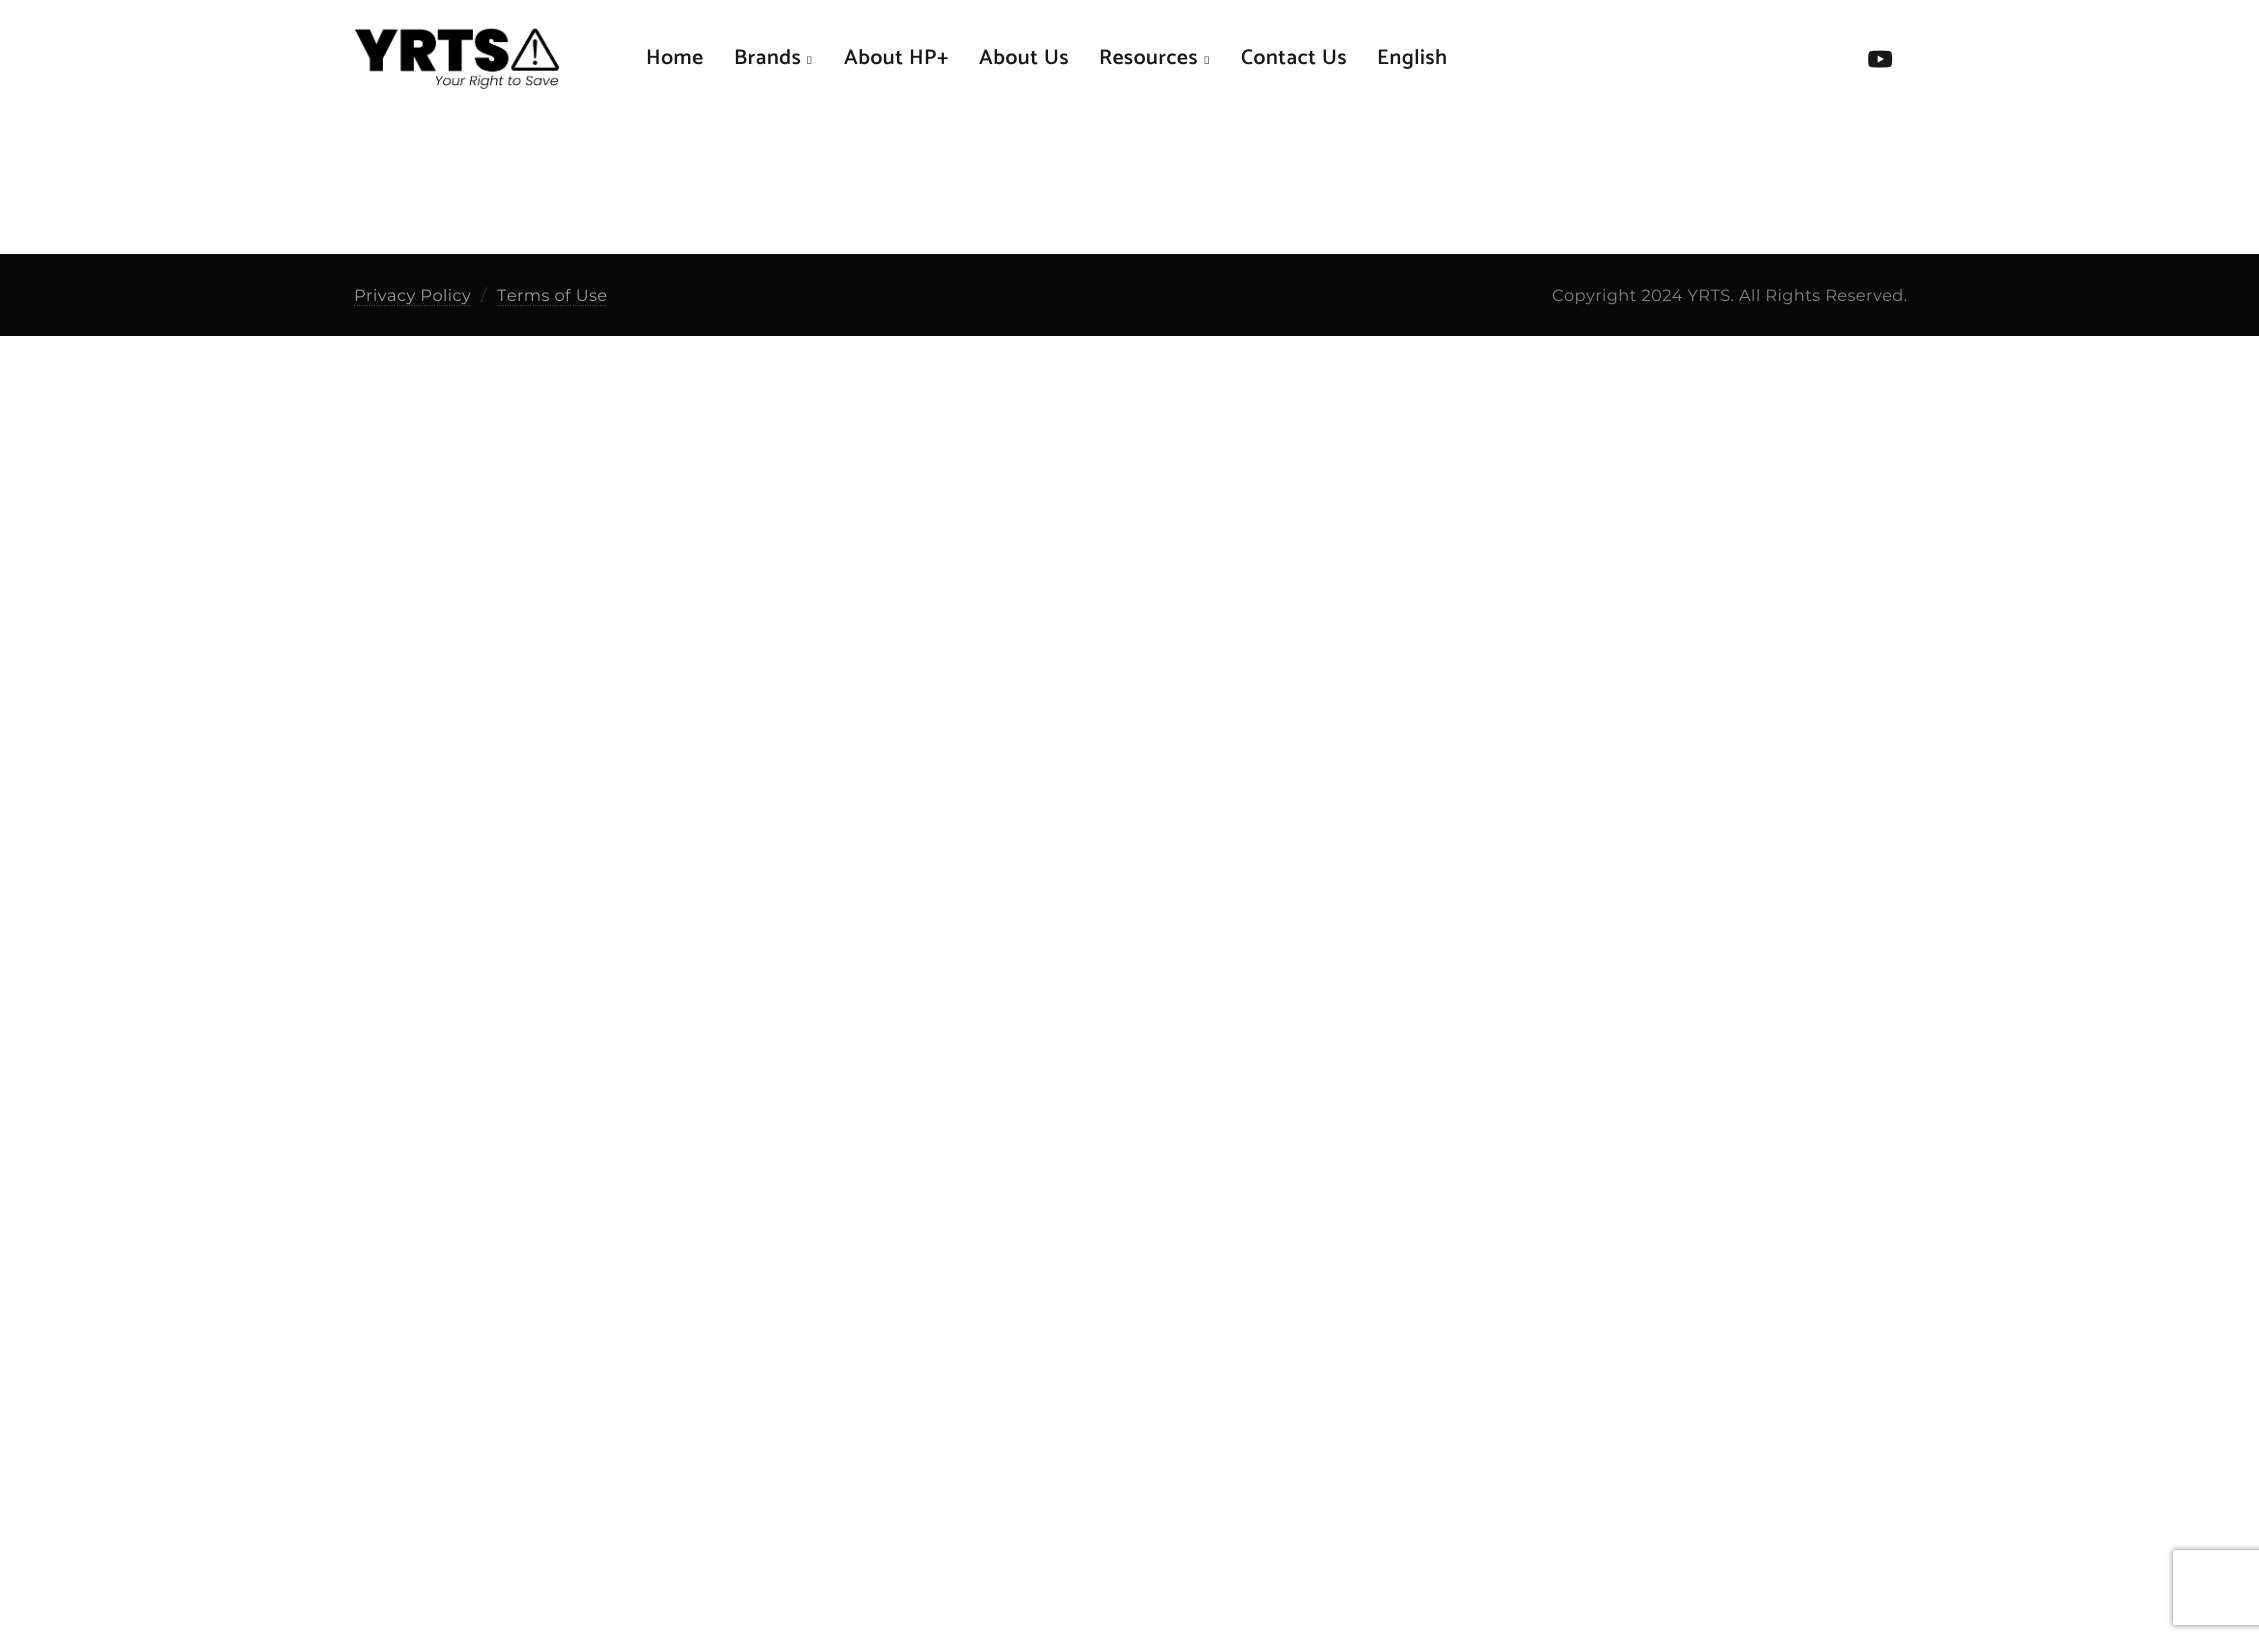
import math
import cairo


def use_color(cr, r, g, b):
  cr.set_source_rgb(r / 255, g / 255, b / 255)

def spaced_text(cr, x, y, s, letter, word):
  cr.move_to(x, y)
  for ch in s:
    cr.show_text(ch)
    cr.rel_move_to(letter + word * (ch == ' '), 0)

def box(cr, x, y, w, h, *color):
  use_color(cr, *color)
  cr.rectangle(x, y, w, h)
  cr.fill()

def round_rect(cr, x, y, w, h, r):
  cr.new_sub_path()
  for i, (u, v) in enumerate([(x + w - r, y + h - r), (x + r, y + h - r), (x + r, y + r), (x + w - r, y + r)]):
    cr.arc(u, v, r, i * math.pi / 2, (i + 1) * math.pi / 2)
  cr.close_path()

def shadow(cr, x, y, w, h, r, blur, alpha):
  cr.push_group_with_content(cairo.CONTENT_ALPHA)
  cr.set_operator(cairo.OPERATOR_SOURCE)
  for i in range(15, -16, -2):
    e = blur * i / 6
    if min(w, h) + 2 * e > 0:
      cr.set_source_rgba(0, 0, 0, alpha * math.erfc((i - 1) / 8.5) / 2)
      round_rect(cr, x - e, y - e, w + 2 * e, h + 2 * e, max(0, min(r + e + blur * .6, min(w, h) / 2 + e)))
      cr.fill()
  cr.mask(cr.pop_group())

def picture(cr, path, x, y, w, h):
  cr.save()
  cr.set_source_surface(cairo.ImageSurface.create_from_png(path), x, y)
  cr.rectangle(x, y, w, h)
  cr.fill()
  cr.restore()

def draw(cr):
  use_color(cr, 255, 255, 255)
  cr.paint()
  picture(cr, "img_01.png", 355, 28, 204, 61)
  picture(cr, "img_02.png", 807, 56, 5, 8)
  picture(cr, "img_03.png", 1204, 56, 5, 8)
  picture(cr, "img_04.png", 1868, 50, 25, 18)
  box(cr, 0, 254, 2259, 82, 8, 8, 8)
  cr.new_path()
  cr.move_to(354, 305.5)
  cr.line_to(471, 305.5)
  use_color(cr, 68, 68, 68)
  cr.set_line_width(1.2)
  cr.set_dash([1.25, 1.25])
  cr.stroke()
  cr.new_path()
  cr.move_to(497.5, 305.5)
  cr.line_to(607.5, 305.5)
  cr.stroke()
  cr.save()
  cr.set_fill_rule(cairo.FILL_RULE_EVEN_ODD)
  cr.new_path()
  cr.move_to(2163, 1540)
  cr.line_to(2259, 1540)
  cr.line_to(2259, 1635)
  cr.line_to(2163, 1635)
  cr.close_path()
  cr.move_to(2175.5, 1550)
  cr.line_to(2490.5, 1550)
  cr.curve_to(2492, 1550, 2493, 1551, 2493, 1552.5)
  cr.line_to(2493, 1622.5)
  cr.curve_to(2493, 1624, 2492, 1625, 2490.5, 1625)
  cr.line_to(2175.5, 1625)
  cr.curve_to(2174, 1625, 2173, 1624, 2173, 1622.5)
  cr.line_to(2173, 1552.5)
  cr.curve_to(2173, 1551, 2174, 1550, 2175.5, 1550)
  cr.close_path()
  cr.clip()
  use_color(cr, 128, 128, 128)
  shadow(cr, 2173, 1550, 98, 75, 2.5, 3, 1)
  cr.restore()
  cr.select_font_face("Catamaran SemiBold")
  cr.set_font_size(21.25)
  use_color(cr, 24, 24, 24)
  spaced_text(cr, 646, 64, "Home", 0.6, 0)
  spaced_text(cr, 734, 64, "Brands", 0.6, 0)
  spaced_text(cr, 844, 64, "About HP+", 0.6, 0)
  spaced_text(cr, 979, 64, "About Us", 0.6, 0)
  spaced_text(cr, 1099, 64, "Resources", 0.6, 0)
  spaced_text(cr, 1241, 64, "Contact Us", 0.6, 0)
  spaced_text(cr, 1377, 64, "English", 0.6, 0)
  cr.select_font_face("Montserrat")
  cr.set_font_size(16.25)
  use_color(cr, 158, 157, 157)
  spaced_text(cr, 354, 301, "Privacy Policy", 0.4, 0)
  use_color(cr, 51, 51, 51)
  spaced_text(cr, 481, 301, "/", 0.4, 0)
  use_color(cr, 158, 157, 157)
  spaced_text(cr, 497, 301, "Terms of Use", 0.4, 0)
  use_color(cr, 130, 130, 130)
  spaced_text(cr, 1552, 301, "Copyright 2024 YRTS. All Rights Reserved.", 0.4, 0)


surface = cairo.ImageSurface(cairo.FORMAT_RGB24, 2259, 1642)
cr = cairo.Context(surface)
options = cairo.FontOptions()
options.set_hint_metrics(cairo.HINT_METRICS_OFF)
options.set_hint_style(cairo.HINT_STYLE_NONE)
cr.set_font_options(options)
cr.set_miter_limit(4)
draw(cr)
surface.write_to_png("out.png")
